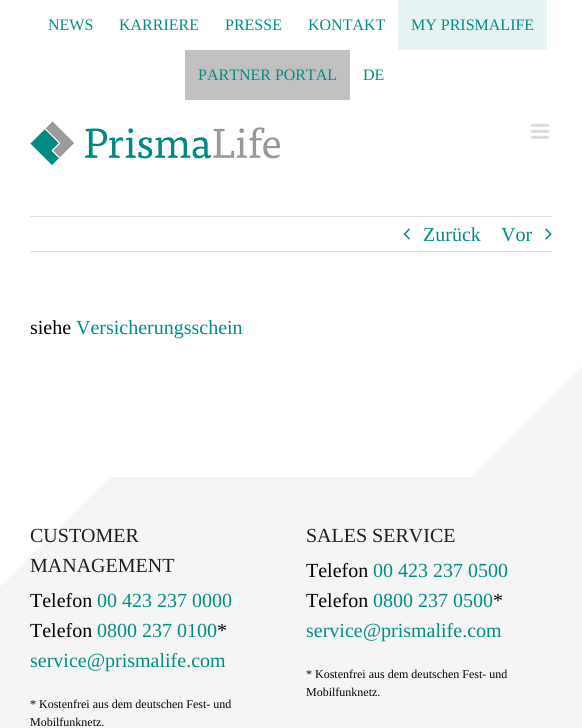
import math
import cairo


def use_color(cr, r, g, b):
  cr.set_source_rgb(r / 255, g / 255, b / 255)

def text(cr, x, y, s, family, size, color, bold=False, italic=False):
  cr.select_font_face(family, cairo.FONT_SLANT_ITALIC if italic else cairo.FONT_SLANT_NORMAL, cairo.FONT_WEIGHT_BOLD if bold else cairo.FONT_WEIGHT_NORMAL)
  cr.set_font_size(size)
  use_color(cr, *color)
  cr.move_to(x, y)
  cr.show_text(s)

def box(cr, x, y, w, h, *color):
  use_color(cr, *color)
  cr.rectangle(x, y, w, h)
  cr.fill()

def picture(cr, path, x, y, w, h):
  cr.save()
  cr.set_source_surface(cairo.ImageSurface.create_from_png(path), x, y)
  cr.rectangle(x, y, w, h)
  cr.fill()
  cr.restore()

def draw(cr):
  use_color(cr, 255, 255, 255)
  cr.paint()
  box(cr, 398, 0, 149, 50, 229, 243, 242)
  box(cr, 185, 50, 165, 50, 192, 192, 192)
  picture(cr, "img_01.png", 30, 121, 250, 44)
  picture(cr, "img_02.png", 531, 123, 18, 16)
  picture(cr, "img_03.png", 472, 367, 110, 110)
  box(cr, 30, 216, 522, 1, 224, 222, 222)
  box(cr, 30, 251, 522, 1, 224, 222, 222)
  picture(cr, "img_04.png", 403, 228, 7, 12)
  picture(cr, "img_05.png", 545, 228, 7, 12)
  box(cr, 0, 477, 582, 251, 246, 245, 245)
  picture(cr, "img_06.png", 0, 477, 109, 109)
  text(cr, 48, 30, "NEWS", "Liberation Serif", 16, (0, 140, 132))
  text(cr, 119, 30, "KARRIERE", "Liberation Serif", 16, (0, 140, 132))
  text(cr, 225, 30, "PRESSE", "Liberation Serif", 16, (0, 140, 132))
  text(cr, 308, 30, "KONTAKT", "Liberation Serif", 16, (0, 140, 132))
  text(cr, 411, 30, "MY PRISMALIFE", "Liberation Serif", 16, (0, 140, 132))
  text(cr, 198, 80, "PARTNER PORTAL", "Liberation Serif", 16, (0, 140, 132))
  text(cr, 363, 80, "DE", "Liberation Serif", 16, (0, 140, 132))
  text(cr, 423, 241, "Zurück", "Liberation Serif", 20, (0, 140, 132))
  text(cr, 501, 241, "Vor", "Liberation Serif", 20, (0, 140, 132))
  text(cr, 30, 334, "siehe", "Liberation Serif", 20, (2, 2, 2))
  text(cr, 76, 334, "Versicherungsschein", "Liberation Serif", 20, (0, 140, 132))
  text(cr, 30, 542, "CUSTOMER", "Liberation Serif", 20, (30, 30, 30))
  text(cr, 30, 572, "MANAGEMENT", "Liberation Serif", 20, (30, 30, 30))
  text(cr, 30, 607, "Telefon", "Liberation Serif", 20, (2, 2, 2))
  text(cr, 97, 607, "00 423 237 0000", "Liberation Serif", 20, (0, 140, 132))
  text(cr, 30, 637, "Telefon", "Liberation Serif", 20, (2, 2, 2))
  text(cr, 97, 637, "0800 237 0100", "Liberation Serif", 20, (0, 140, 132))
  text(cr, 217, 637, "*", "Liberation Serif", 20, (2, 2, 2))
  text(cr, 30, 667, "service@prismalife.com", "Liberation Serif", 20, (0, 140, 132))
  text(cr, 30, 708, "* Kostenfrei aus dem deutschen Fest- und", "Liberation Serif", 12, (2, 2, 2))
  text(cr, 30, 726, "Mobilfunknetz.", "Liberation Serif", 12, (2, 2, 2))
  text(cr, 306, 542, "SALES SERVICE", "Liberation Serif", 20, (30, 30, 30))
  text(cr, 306, 577, "Telefon", "Liberation Serif", 20, (2, 2, 2))
  text(cr, 373, 577, "00 423 237 0500", "Liberation Serif", 20, (0, 140, 132))
  text(cr, 306, 607, "Telefon", "Liberation Serif", 20, (2, 2, 2))
  text(cr, 373, 607, "0800 237 0500", "Liberation Serif", 20, (0, 140, 132))
  text(cr, 493, 607, "*", "Liberation Serif", 20, (2, 2, 2))
  text(cr, 306, 637, "service@prismalife.com", "Liberation Serif", 20, (0, 140, 132))
  text(cr, 306, 678, "* Kostenfrei aus dem deutschen Fest- und", "Liberation Serif", 12, (2, 2, 2))
  text(cr, 306, 696, "Mobilfunknetz.", "Liberation Serif", 12, (2, 2, 2))


surface = cairo.ImageSurface(cairo.FORMAT_RGB24, 582, 728)
cr = cairo.Context(surface)
options = cairo.FontOptions()
options.set_hint_metrics(cairo.HINT_METRICS_OFF)
options.set_hint_style(cairo.HINT_STYLE_NONE)
cr.set_font_options(options)
cr.set_miter_limit(4)
draw(cr)
surface.write_to_png("out.png")
